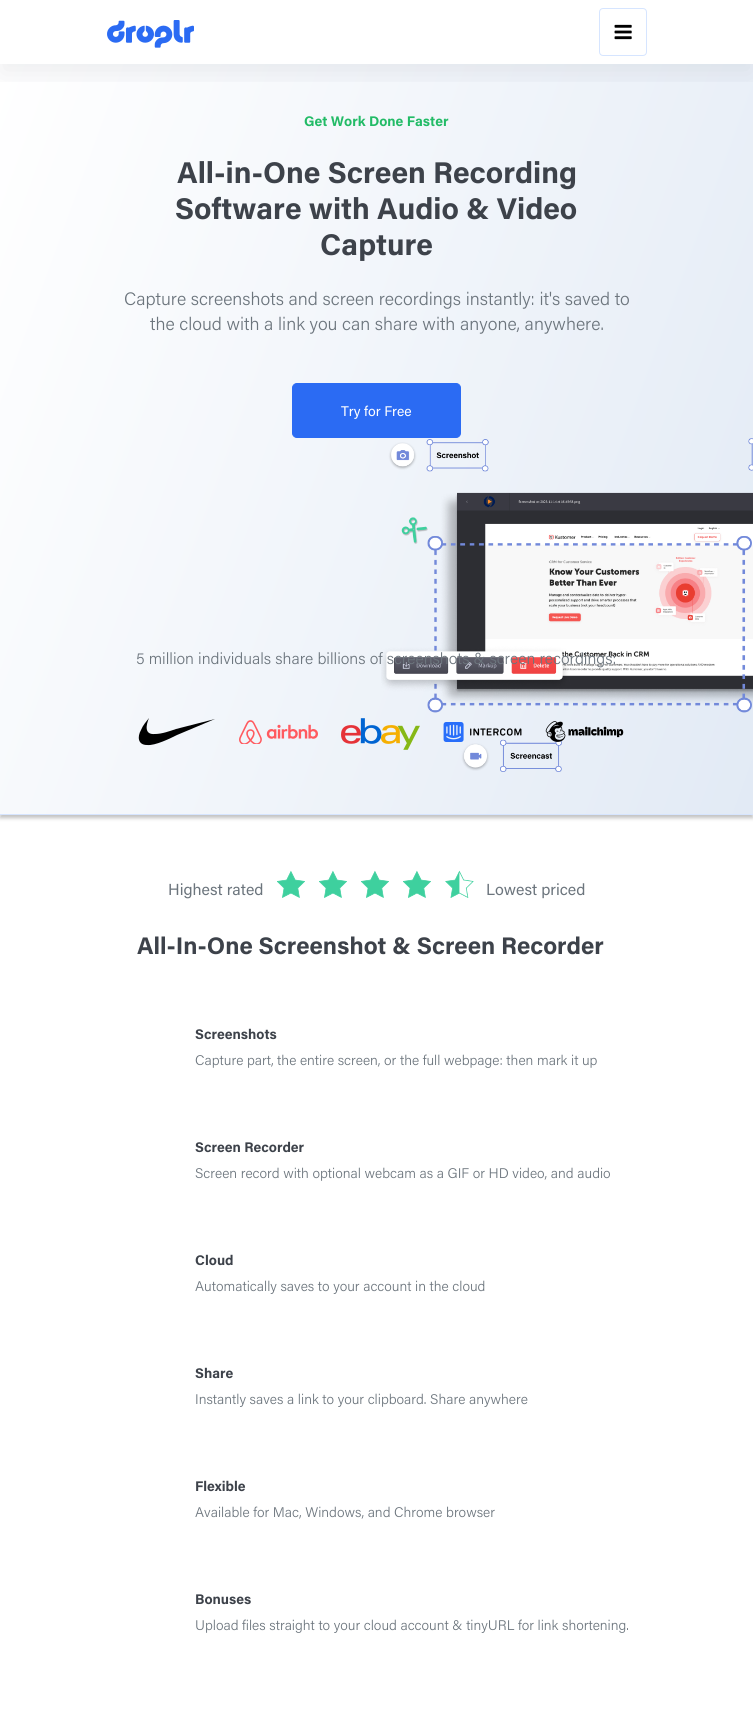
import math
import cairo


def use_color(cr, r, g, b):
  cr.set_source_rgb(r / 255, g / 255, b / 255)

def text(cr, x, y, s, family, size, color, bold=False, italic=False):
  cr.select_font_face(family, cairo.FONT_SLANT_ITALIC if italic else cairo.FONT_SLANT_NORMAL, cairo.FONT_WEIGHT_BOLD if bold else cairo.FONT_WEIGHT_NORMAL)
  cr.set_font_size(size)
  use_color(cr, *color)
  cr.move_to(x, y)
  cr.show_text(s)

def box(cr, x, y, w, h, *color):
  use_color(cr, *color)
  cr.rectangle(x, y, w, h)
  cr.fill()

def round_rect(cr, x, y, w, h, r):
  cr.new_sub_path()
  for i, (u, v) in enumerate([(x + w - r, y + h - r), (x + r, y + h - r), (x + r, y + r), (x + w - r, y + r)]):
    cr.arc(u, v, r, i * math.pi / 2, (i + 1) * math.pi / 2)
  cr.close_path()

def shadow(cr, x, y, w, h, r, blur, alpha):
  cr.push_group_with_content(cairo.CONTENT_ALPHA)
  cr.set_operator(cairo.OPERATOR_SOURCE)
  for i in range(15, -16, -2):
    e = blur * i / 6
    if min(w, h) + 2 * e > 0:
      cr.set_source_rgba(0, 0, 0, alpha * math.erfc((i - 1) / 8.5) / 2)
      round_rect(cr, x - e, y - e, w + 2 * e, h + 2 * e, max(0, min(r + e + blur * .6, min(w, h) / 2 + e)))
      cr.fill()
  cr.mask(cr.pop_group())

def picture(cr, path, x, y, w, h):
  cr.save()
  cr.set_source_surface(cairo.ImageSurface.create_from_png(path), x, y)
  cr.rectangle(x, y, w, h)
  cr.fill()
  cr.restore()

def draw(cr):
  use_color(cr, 255, 255, 255)
  cr.paint()
  use_color(cr, 0, 0, 0)
  shadow(cr, 0, 68, 753, 750, 0, 2, 0.25)
  gradient = cairo.LinearGradient(-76, 274, 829, 604)
  gradient.add_color_stop_rgba(0, 1, 1, 1, 1)
  gradient.add_color_stop_rgba(1, 0.886, 0.918, 0.961, 1)
  cr.set_source(gradient)
  cr.rectangle(0, 64, 753, 750)
  cr.fill()
  cr.save()
  cr.rectangle(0, 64, 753, 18)
  cr.clip()
  use_color(cr, 0, 10, 30)
  shadow(cr, 0, 10, 753, 64, 0, 15, 0.07)
  cr.restore()
  picture(cr, "img_01.png", 107, 20, 87, 28)
  round_rect(cr, 599.5, 8.5, 47, 47, 3.5)
  use_color(cr, 214, 229, 255)
  cr.set_line_width(1)
  cr.stroke()
  picture(cr, "img_02.png", 614, 24, 18, 16)
  use_color(cr, 43, 107, 243)
  round_rect(cr, 292.5, 383.5, 168, 54, 4.5)
  cr.fill_preserve()
  cr.stroke()
  picture(cr, "img_03.png", 381, 438, 372, 334)
  use_color(cr, 0, 0, 0)
  cr.new_path()
  cr.move_to(147, 745)
  cr.curve_to(138, 745, 137, 737, 141, 730)
  cr.curve_to(143, 725, 146, 722, 149, 718)
  cr.curve_to(146, 725, 144, 735, 155, 734)
  cr.curve_to(162, 734, 170, 731, 176, 729)
  cr.line_to(215, 719)
  cr.line_to(177, 735)
  cr.curve_to(171, 738, 155, 746, 147, 745)
  cr.close_path()
  cr.fill()
  picture(cr, "img_04.png", 239, 720, 79, 24)
  picture(cr, "img_05.png", 341, 718, 79, 32)
  picture(cr, "img_06.png", 443, 722, 79, 20)
  picture(cr, "img_07.png", 545, 721, 79, 21)
  box(cr, 0, 814, 753, 1, 214, 229, 255)
  picture(cr, "img_08.png", 277, 870, 28, 28)
  picture(cr, "img_08.png", 319, 870, 28, 28)
  picture(cr, "img_08.png", 361, 870, 28, 28)
  picture(cr, "img_08.png", 403, 870, 28, 28)
  picture(cr, "img_09.png", 445, 870, 29, 28)
  text(cr, 304, 126, "Get Work Done Faster", "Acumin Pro", 14, (34, 187, 102), bold=True)
  text(cr, 177, 183, "All-in-One Screen Recording", "Acumin Pro", 30, (61, 66, 74), bold=True)
  text(cr, 175, 219, "Software with Audio & Video", "Acumin Pro", 30, (61, 66, 74), bold=True)
  text(cr, 320, 255, "Capture", "Acumin Pro", 30, (61, 66, 74), bold=True)
  text(cr, 124, 305, "Capture screenshots and screen recordings instantly: it's saved to", "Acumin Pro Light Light", 18, (108, 117, 125))
  text(cr, 150, 330, "the cloud with a link you can share with anyone, anywhere.", "Acumin Pro Light Light", 18, (108, 117, 125))
  text(cr, 341, 416, "Try for Free", "Acumin Pro", 14, (255, 255, 255))
  text(cr, 136, 664, "5 million individuals share billions of screenshots & screen recordings:", "Acumin Pro Light Light", 16, (108, 117, 125))
  text(cr, 168, 895, "Highest rated", "Acumin Pro", 16, (108, 117, 125))
  text(cr, 486, 895, "Lowest priced", "Acumin Pro", 16, (108, 117, 125))
  text(cr, 137, 954, "All-In-One Screenshot & Screen Recorder", "Acumin Pro", 24, (61, 66, 74), bold=True)
  text(cr, 195, 1039, "Screenshots", "Acumin Pro", 14, (61, 66, 74), bold=True)
  text(cr, 195, 1065, "Capture part, the entire screen, or the full webpage: then mark it up", "Acumin Pro Light Light", 14, (108, 117, 125))
  text(cr, 195, 1152, "Screen Recorder", "Acumin Pro", 14, (61, 66, 74), bold=True)
  text(cr, 195, 1178, "Screen record with optional webcam as a GIF or HD video, and audio", "Acumin Pro Light Light", 14, (108, 117, 125))
  text(cr, 195, 1265, "Cloud", "Acumin Pro", 14, (61, 66, 74), bold=True)
  text(cr, 195, 1291, "Automatically saves to your account in the cloud", "Acumin Pro Light Light", 14, (108, 117, 125))
  text(cr, 195, 1378, "Share", "Acumin Pro", 14, (61, 66, 74), bold=True)
  text(cr, 195, 1404, "Instantly saves a link to your clipboard. Share anywhere", "Acumin Pro Light Light", 14, (108, 117, 125))
  text(cr, 195, 1491, "Flexible", "Acumin Pro", 14, (61, 66, 74), bold=True)
  text(cr, 195, 1517, "Available for Mac, Windows, and Chrome browser", "Acumin Pro Light Light", 14, (108, 117, 125))
  text(cr, 195, 1604, "Bonuses", "Acumin Pro", 14, (61, 66, 74), bold=True)
  text(cr, 195, 1630, "Upload files straight to your cloud account & tinyURL for link shortening.", "Acumin Pro Light Light", 14, (108, 117, 125))


surface = cairo.ImageSurface(cairo.FORMAT_RGB24, 753, 1725)
cr = cairo.Context(surface)
options = cairo.FontOptions()
options.set_hint_metrics(cairo.HINT_METRICS_OFF)
options.set_hint_style(cairo.HINT_STYLE_NONE)
cr.set_font_options(options)
cr.set_miter_limit(4)
draw(cr)
surface.write_to_png("out.png")
